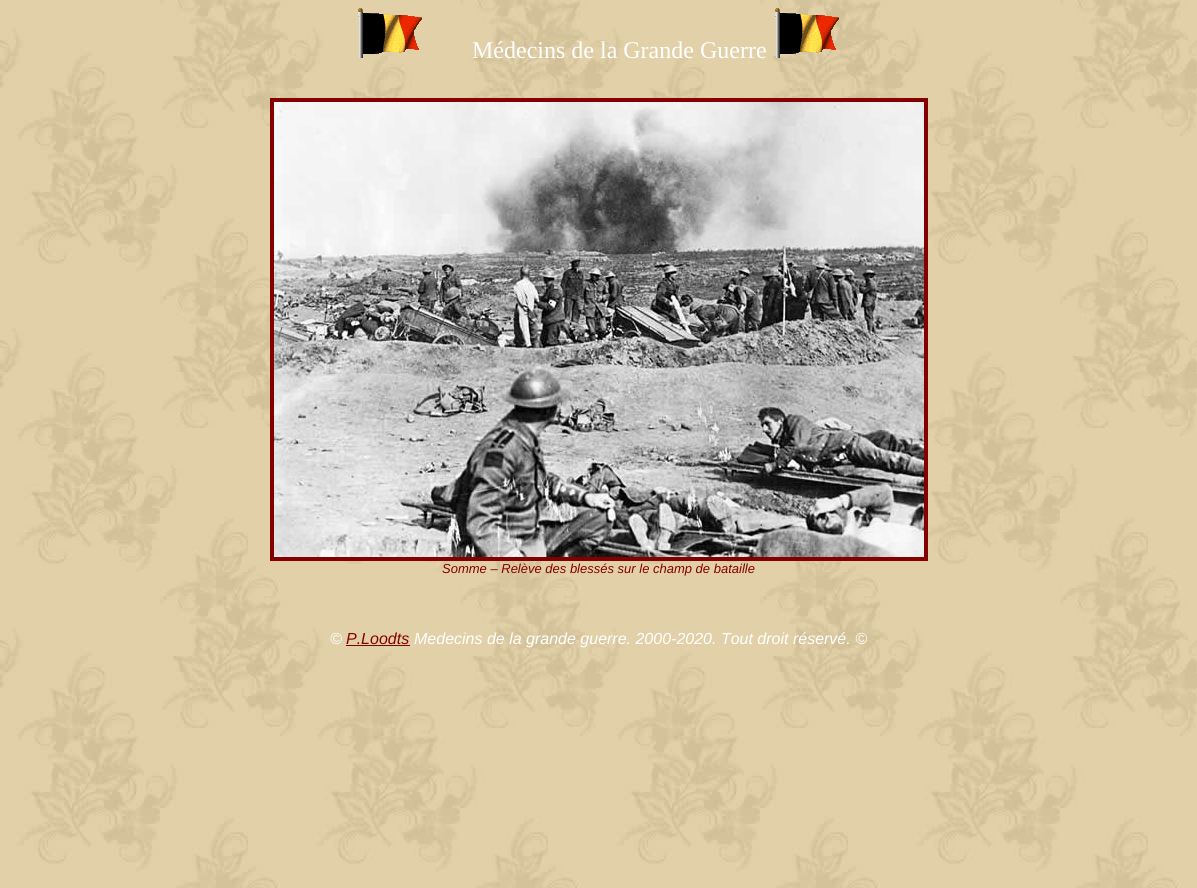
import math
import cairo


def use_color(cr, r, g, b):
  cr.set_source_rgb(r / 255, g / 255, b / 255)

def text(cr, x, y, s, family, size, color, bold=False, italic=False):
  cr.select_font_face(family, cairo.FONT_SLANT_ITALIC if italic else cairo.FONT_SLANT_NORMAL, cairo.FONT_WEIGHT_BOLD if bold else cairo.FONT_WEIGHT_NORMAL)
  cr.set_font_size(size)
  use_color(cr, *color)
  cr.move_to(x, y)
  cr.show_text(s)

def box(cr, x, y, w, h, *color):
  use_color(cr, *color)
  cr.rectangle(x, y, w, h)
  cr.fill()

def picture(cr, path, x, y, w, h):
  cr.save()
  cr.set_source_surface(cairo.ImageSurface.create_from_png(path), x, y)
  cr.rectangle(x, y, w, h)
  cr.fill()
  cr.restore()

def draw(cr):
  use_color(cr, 255, 255, 255)
  cr.paint()
  picture(cr, "img_01.png", 0, 0, 1197, 888)
  picture(cr, "img_02.png", 358, 8, 64, 50)
  picture(cr, "img_03.png", 775, 8, 64, 50)
  cr.rectangle(272, 100, 654, 459)
  use_color(cr, 132, 0, 0)
  cr.set_line_width(4)
  cr.stroke()
  picture(cr, "img_04.png", 274, 102, 650, 455)
  box(cr, 346, 645, 64, 1, 132, 0, 0)
  text(cr, 472, 58, "Médecins de la Grande Guerre", "Liberation Serif", 24, (255, 255, 255))
  text(cr, 442, 573, "Somme – Relève des blessés sur le champ de bataille", "Liberation Sans", 13, (132, 0, 0), italic=True)
  text(cr, 330, 644, "©", "Liberation Sans", 16, (255, 255, 255), italic=True)
  text(cr, 346, 644, "P.Loodts", "Liberation Sans", 16, (132, 0, 0), italic=True)
  text(cr, 414, 644, "Medecins de la grande guerre. 2000-2020. Tout droit réservé. ©", "Liberation Sans", 16, (255, 255, 255), italic=True)


surface = cairo.ImageSurface(cairo.FORMAT_RGB24, 1197, 888)
cr = cairo.Context(surface)
options = cairo.FontOptions()
options.set_hint_metrics(cairo.HINT_METRICS_OFF)
options.set_hint_style(cairo.HINT_STYLE_NONE)
cr.set_font_options(options)
cr.set_miter_limit(4)
draw(cr)
surface.write_to_png("out.png")
